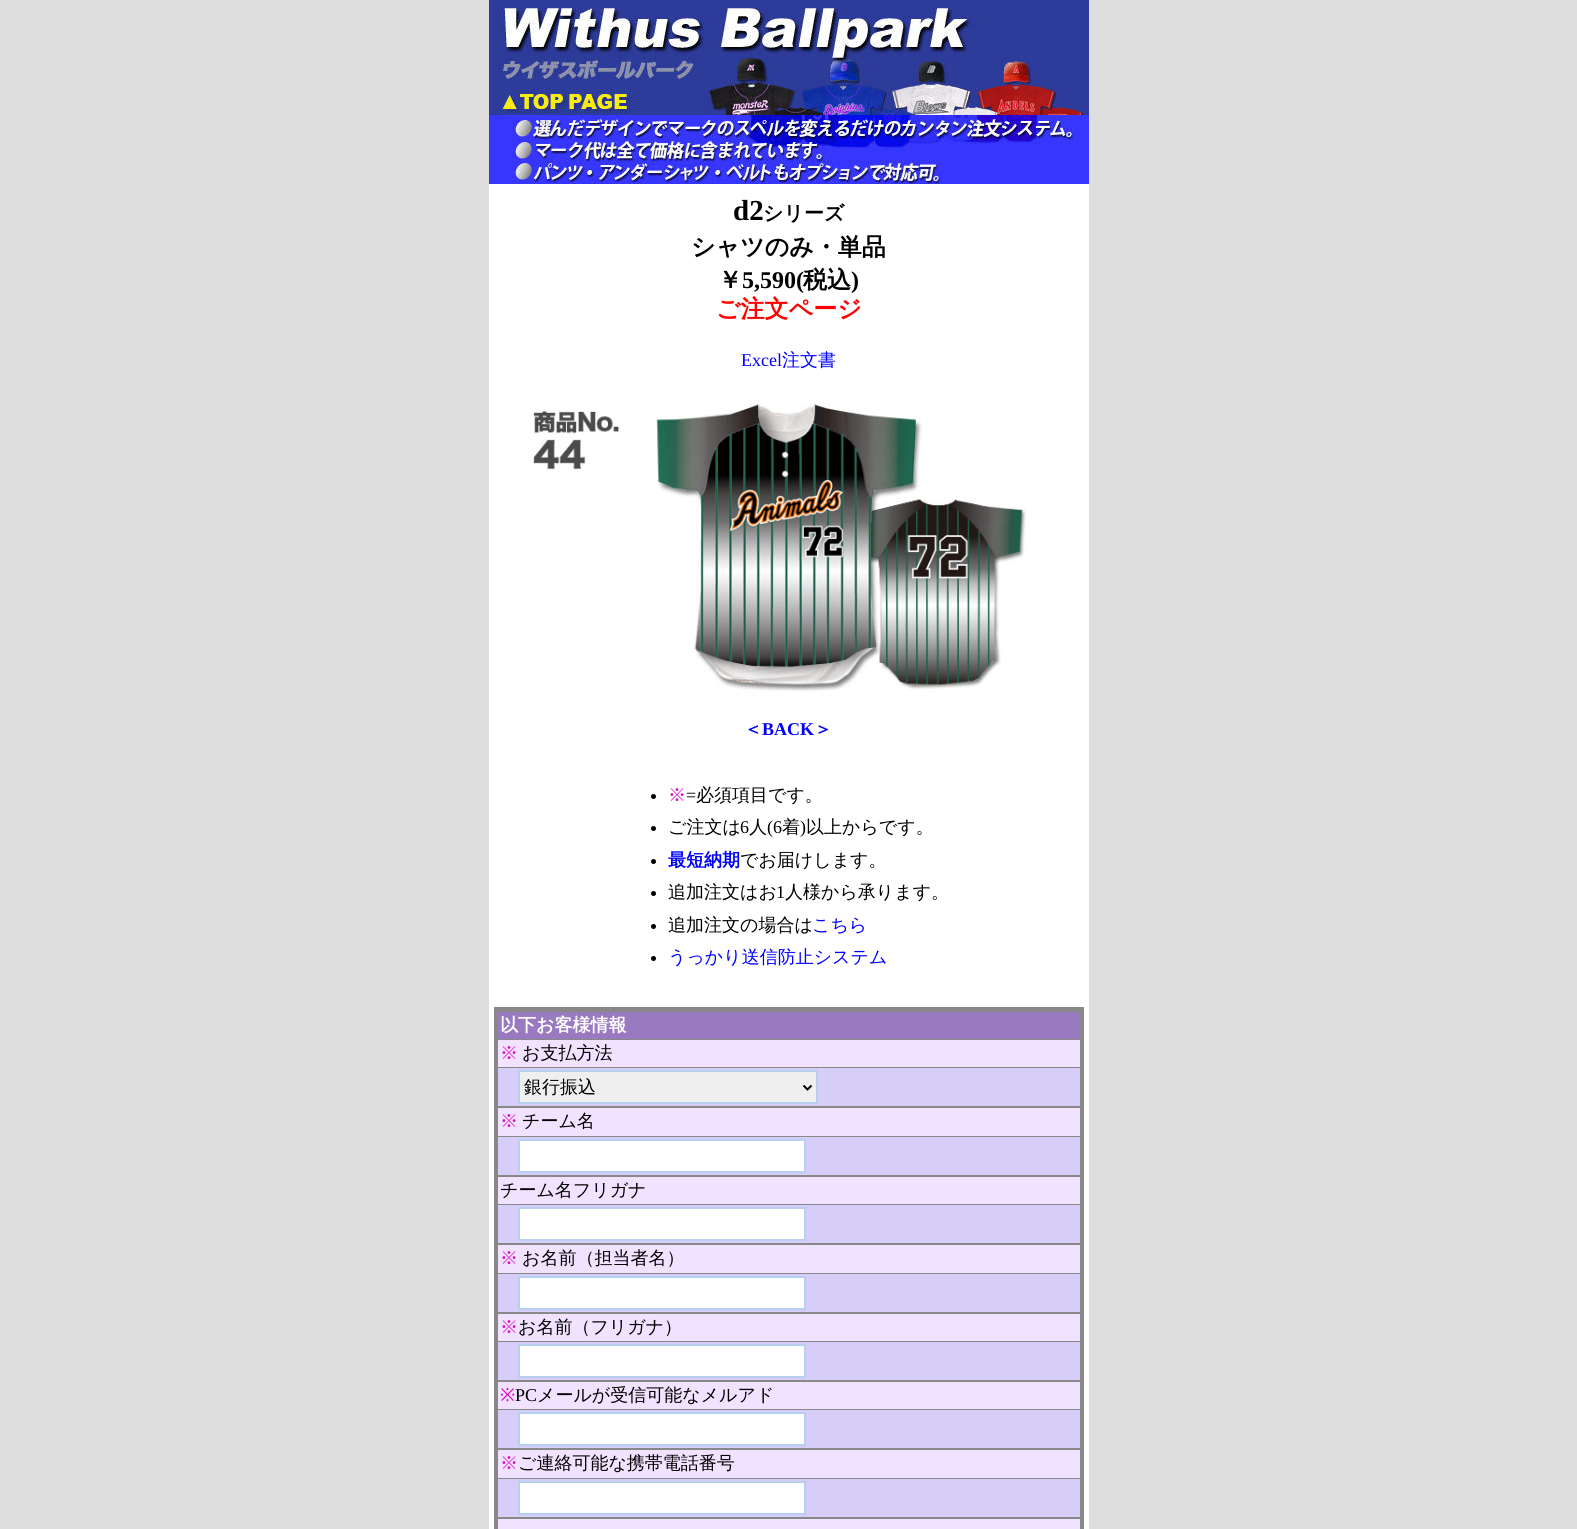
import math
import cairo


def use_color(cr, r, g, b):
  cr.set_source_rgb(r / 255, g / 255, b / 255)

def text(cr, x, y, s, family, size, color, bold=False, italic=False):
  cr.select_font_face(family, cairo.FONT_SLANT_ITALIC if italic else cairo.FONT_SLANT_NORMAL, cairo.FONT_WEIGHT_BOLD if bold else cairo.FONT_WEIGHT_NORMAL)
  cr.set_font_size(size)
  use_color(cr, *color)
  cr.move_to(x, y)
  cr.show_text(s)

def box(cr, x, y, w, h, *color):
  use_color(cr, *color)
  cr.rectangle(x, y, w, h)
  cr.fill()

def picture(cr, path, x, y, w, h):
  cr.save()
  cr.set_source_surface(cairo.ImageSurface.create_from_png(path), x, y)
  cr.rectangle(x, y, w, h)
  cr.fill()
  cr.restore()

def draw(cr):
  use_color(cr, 222, 222, 222)
  cr.paint()
  box(cr, 489, 184, 600, 1345, 255, 255, 255)
  picture(cr, "img_01.png", 489, 0, 600, 184)
  picture(cr, "img_02.png", 533, 403, 493, 288)
  use_color(cr, 0, 0, 0)
  cr.arc(653.5, 796.5, 2.5, 0, 2 * math.pi)
  cr.fill()
  cr.arc(653.5, 828.5, 2.5, 0, 2 * math.pi)
  cr.fill()
  cr.arc(653.5, 861.5, 2.5, 0, 2 * math.pi)
  cr.fill()
  cr.arc(653.5, 893.5, 2.5, 0, 2 * math.pi)
  cr.fill()
  cr.arc(653.5, 926.5, 2.5, 0, 2 * math.pi)
  cr.fill()
  cr.arc(653.5, 958.5, 2.5, 0, 2 * math.pi)
  cr.fill()
  box(cr, 494, 1007, 590, 522, 136, 136, 136)
  box(cr, 498, 1012, 582, 27, 153, 122, 192)
  box(cr, 498, 1040, 582, 27, 241, 227, 255)
  box(cr, 498, 1068, 582, 38, 214, 206, 248)
  use_color(cr, 239, 239, 239)
  cr.rectangle(519, 1071, 298, 32)
  cr.fill_preserve()
  use_color(cr, 184, 208, 240)
  cr.stroke()
  cr.new_path()
  cr.move_to(803.5, 1085.5)
  cr.line_to(807.5, 1089.5)
  cr.line_to(811.5, 1085.5)
  use_color(cr, 0, 0, 0)
  cr.stroke()
  box(cr, 498, 1108, 582, 28, 241, 227, 255)
  box(cr, 498, 1137, 582, 38, 214, 206, 248)
  use_color(cr, 255, 255, 255)
  cr.rectangle(519, 1140, 286, 32)
  cr.fill_preserve()
  use_color(cr, 184, 208, 240)
  cr.stroke()
  box(cr, 498, 1177, 582, 27, 241, 227, 255)
  box(cr, 498, 1205, 582, 38, 214, 206, 248)
  use_color(cr, 255, 255, 255)
  cr.rectangle(519, 1208, 286, 32)
  cr.fill_preserve()
  use_color(cr, 184, 208, 240)
  cr.stroke()
  box(cr, 498, 1245, 582, 28, 241, 227, 255)
  box(cr, 498, 1274, 582, 38, 214, 206, 248)
  use_color(cr, 255, 255, 255)
  cr.rectangle(519, 1277, 286, 32)
  cr.fill_preserve()
  use_color(cr, 184, 208, 240)
  cr.stroke()
  box(cr, 498, 1314, 582, 27, 241, 227, 255)
  box(cr, 498, 1342, 582, 38, 214, 206, 248)
  use_color(cr, 255, 255, 255)
  cr.rectangle(519, 1345, 286, 32)
  cr.fill_preserve()
  use_color(cr, 184, 208, 240)
  cr.stroke()
  box(cr, 498, 1382, 582, 27, 241, 227, 255)
  box(cr, 498, 1410, 582, 38, 214, 206, 248)
  use_color(cr, 255, 255, 255)
  cr.rectangle(519, 1413, 286, 32)
  cr.fill_preserve()
  use_color(cr, 184, 208, 240)
  cr.stroke()
  box(cr, 498, 1450, 582, 28, 241, 227, 255)
  box(cr, 498, 1479, 582, 38, 214, 206, 248)
  use_color(cr, 255, 255, 255)
  cr.rectangle(519, 1482, 286, 32)
  cr.fill_preserve()
  use_color(cr, 184, 208, 240)
  cr.stroke()
  box(cr, 498, 1519, 582, 10, 241, 227, 255)
  text(cr, 733, 220, "d2", "Liberation Serif", 29, (0, 0, 0), bold=True)
  text(cr, 763, 220, "シリーズ", "WenQuanYi Zen Hei", 20, (0, 0, 0), bold=True)
  text(cr, 691, 255, "シャツのみ・単品", "WenQuanYi Zen Hei", 24, (0, 0, 0), bold=True)
  text(cr, 718, 288, "￥", "WenQuanYi Zen Hei", 24, (0, 0, 0), bold=True)
  text(cr, 742, 288, "5,590(", "Liberation Serif", 24, (0, 0, 0), bold=True)
  text(cr, 803, 288, "税込", "WenQuanYi Zen Hei", 24, (0, 0, 0), bold=True)
  text(cr, 851, 288, ")", "Liberation Serif", 24, (0, 0, 0), bold=True)
  text(cr, 716, 317, "ご注文ページ", "WenQuanYi Zen Hei", 24, (255, 0, 0), bold=True)
  text(cr, 741, 366, "Excel", "Liberation Serif", 18, (0, 0, 255))
  text(cr, 782, 366, "注文書", "WenQuanYi Zen Hei Medium", 18, (0, 0, 255))
  text(cr, 744, 735, "＜", "WenQuanYi Zen Hei", 18, (0, 0, 255), bold=True)
  text(cr, 762, 735, "BACK", "Liberation Serif", 18, (0, 0, 255), bold=True)
  text(cr, 814, 735, "＞", "WenQuanYi Zen Hei", 18, (0, 0, 255), bold=True)
  text(cr, 668, 801, "※", "WenQuanYi Zen Hei Medium", 18, (221, 5, 203))
  text(cr, 686, 801, "=", "Liberation Serif", 18, (0, 0, 0))
  text(cr, 696, 801, "必須項目です。", "WenQuanYi Zen Hei Medium", 18, (0, 0, 0))
  text(cr, 668, 833, "ご注文は", "WenQuanYi Zen Hei Medium", 18, (0, 0, 0))
  text(cr, 740, 833, "6", "Liberation Serif", 18, (0, 0, 0))
  text(cr, 749, 833, "人", "WenQuanYi Zen Hei Medium", 18, (0, 0, 0))
  text(cr, 767, 833, "(6", "Liberation Serif", 18, (0, 0, 0))
  text(cr, 782, 833, "着", "WenQuanYi Zen Hei Medium", 18, (0, 0, 0))
  text(cr, 800, 833, ")", "Liberation Serif", 18, (0, 0, 0))
  text(cr, 806, 833, "以上からです。", "WenQuanYi Zen Hei Medium", 18, (0, 0, 0))
  text(cr, 668, 866, "最短納期", "WenQuanYi Zen Hei", 18, (0, 0, 255), bold=True)
  text(cr, 740, 866, "でお届けします。", "WenQuanYi Zen Hei Medium", 18, (0, 0, 0))
  text(cr, 668, 898, "追加注文はお", "WenQuanYi Zen Hei Medium", 18, (0, 0, 0))
  text(cr, 776, 898, "1", "Liberation Serif", 18, (0, 0, 0))
  text(cr, 785, 898, "人様から承ります。", "WenQuanYi Zen Hei Medium", 18, (0, 0, 0))
  text(cr, 668, 931, "追加注文の場合は", "WenQuanYi Zen Hei Medium", 18, (0, 0, 0))
  text(cr, 812, 931, "こちら", "WenQuanYi Zen Hei Medium", 18, (0, 0, 255))
  text(cr, 668, 963, "うっかり送信防止システム", "WenQuanYi Zen Hei Medium", 18, (0, 0, 255))
  text(cr, 500, 1031, "以下お客様情報", "WenQuanYi Zen Hei", 18, (255, 255, 255), bold=True)
  text(cr, 500, 1059, "※", "WenQuanYi Zen Hei Medium", 18, (221, 5, 203))
  text(cr, 522, 1059, "お支払方法", "WenQuanYi Zen Hei Medium", 18, (0, 0, 0))
  text(cr, 524, 1093, "銀行振込", "WenQuanYi Zen Hei Medium", 18, (0, 0, 0))
  text(cr, 500, 1127, "※", "WenQuanYi Zen Hei Medium", 18, (221, 5, 203))
  text(cr, 522, 1127, "チーム名", "WenQuanYi Zen Hei Medium", 18, (0, 0, 0))
  text(cr, 500, 1196, "チーム名フリガナ", "WenQuanYi Zen Hei Medium", 18, (0, 0, 0))
  text(cr, 500, 1264, "※", "WenQuanYi Zen Hei Medium", 18, (221, 5, 203))
  text(cr, 522, 1264, "お名前（担当者名）", "WenQuanYi Zen Hei Medium", 18, (0, 0, 0))
  text(cr, 500, 1333, "※", "WenQuanYi Zen Hei Medium", 18, (221, 5, 203))
  text(cr, 518, 1333, "お名前（フリガナ）", "WenQuanYi Zen Hei Medium", 18, (0, 0, 0))
  text(cr, 500, 1401, "※", "Noto Sans", 18, (221, 5, 203))
  text(cr, 515, 1401, "PC", "Liberation Serif", 18, (0, 0, 0))
  text(cr, 537, 1401, "メールが受信可能なメルアド", "WenQuanYi Zen Hei Medium", 18, (0, 0, 0))
  text(cr, 500, 1469, "※", "WenQuanYi Zen Hei Medium", 18, (221, 5, 203))
  text(cr, 518, 1469, "ご連絡可能な携帯電話番号", "WenQuanYi Zen Hei Medium", 18, (0, 0, 0))


surface = cairo.ImageSurface(cairo.FORMAT_RGB24, 1577, 1529)
cr = cairo.Context(surface)
options = cairo.FontOptions()
options.set_hint_metrics(cairo.HINT_METRICS_OFF)
options.set_hint_style(cairo.HINT_STYLE_NONE)
cr.set_font_options(options)
cr.set_miter_limit(4)
draw(cr)
surface.write_to_png("out.png")
